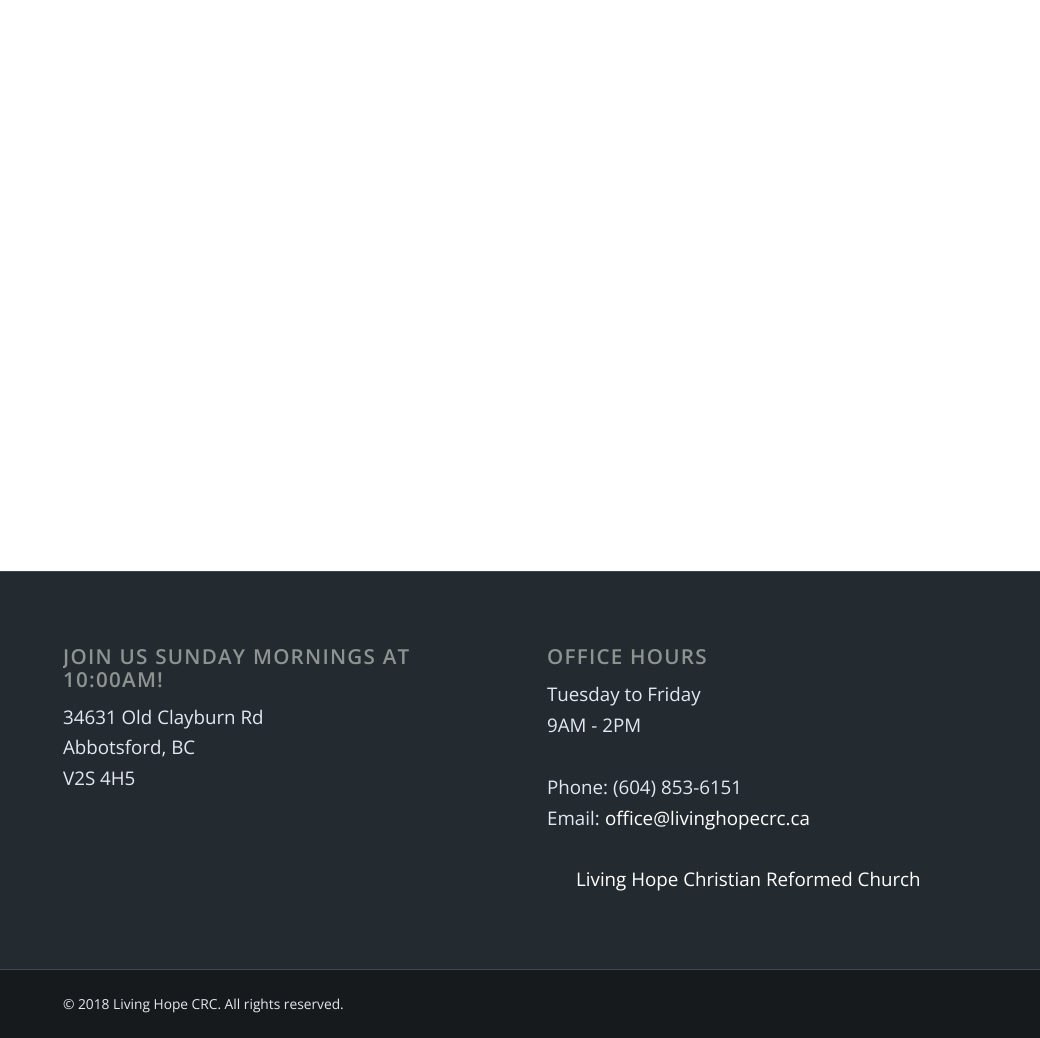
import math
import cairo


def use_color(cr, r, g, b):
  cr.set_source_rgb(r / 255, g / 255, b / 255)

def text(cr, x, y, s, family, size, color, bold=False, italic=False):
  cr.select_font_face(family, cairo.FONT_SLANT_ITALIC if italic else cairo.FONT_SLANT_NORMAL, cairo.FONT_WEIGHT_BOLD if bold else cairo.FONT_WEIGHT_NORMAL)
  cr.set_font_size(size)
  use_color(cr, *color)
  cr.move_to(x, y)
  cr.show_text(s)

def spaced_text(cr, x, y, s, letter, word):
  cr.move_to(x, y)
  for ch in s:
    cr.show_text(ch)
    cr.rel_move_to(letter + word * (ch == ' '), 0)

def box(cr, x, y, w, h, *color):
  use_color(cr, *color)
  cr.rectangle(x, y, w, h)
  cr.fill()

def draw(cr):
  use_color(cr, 255, 255, 255)
  cr.paint()
  box(cr, 0, 572, 1040, 397, 35, 43, 48)
  box(cr, 0, 571, 1040, 1, 56, 72, 82)
  box(cr, 0, 970, 1040, 68, 22, 26, 28)
  box(cr, 0, 969, 1040, 1, 62, 74, 82)
  cr.save()
  cr.rectangle(63, 629, 430, 165)
  cr.clip()
  cr.select_font_face("Open Sans SemiBold")
  cr.set_font_size(20.6)
  use_color(cr, 142, 147, 146)
  spaced_text(cr, 63, 664, "JOIN US SUNDAY MORNINGS AT", 1.25, 0)
  cr.restore()
  cr.select_font_face("Open Sans SemiBold")
  cr.set_font_size(20.6)
  use_color(cr, 142, 147, 146)
  spaced_text(cr, 63, 687, "10:00AM!", 1.25, 0)
  text(cr, 63, 724, "34631 Old Clayburn Rd", "Open Sans", 18.75, (228, 230, 240))
  text(cr, 63, 754, "Abbotsford, BC", "Open Sans", 18.75, (228, 230, 240))
  text(cr, 63, 785, "V2S 4H5", "Open Sans", 18.75, (228, 230, 240))
  cr.select_font_face("Open Sans SemiBold")
  cr.set_font_size(20.6)
  use_color(cr, 142, 147, 146)
  spaced_text(cr, 547, 664, "OFFICE HOURS", 1.25, 0)
  text(cr, 547, 701, "Tuesday to Friday", "Open Sans", 18.75, (228, 230, 240))
  text(cr, 547, 732, "9AM - 2PM", "Open Sans", 18.75, (228, 230, 240))
  text(cr, 547, 794, "Phone: (604) 853-6151", "Open Sans", 18.75, (228, 230, 240))
  text(cr, 547, 825, "Email:", "Open Sans", 18.75, (228, 230, 240))
  text(cr, 605, 825, "office@livinghopecrc.ca", "Open Sans", 18.75, (255, 255, 255))
  text(cr, 576, 886, "Living Hope Christian Reformed Church", "Open Sans", 18.75, (255, 255, 255))
  text(cr, 63, 1009, "© 2018 Living Hope CRC. All rights reserved.", "Open Sans", 13.75, (228, 230, 240))


surface = cairo.ImageSurface(cairo.FORMAT_RGB24, 1040, 1038)
cr = cairo.Context(surface)
options = cairo.FontOptions()
options.set_hint_metrics(cairo.HINT_METRICS_OFF)
options.set_hint_style(cairo.HINT_STYLE_NONE)
cr.set_font_options(options)
cr.set_miter_limit(4)
draw(cr)
surface.write_to_png("out.png")
